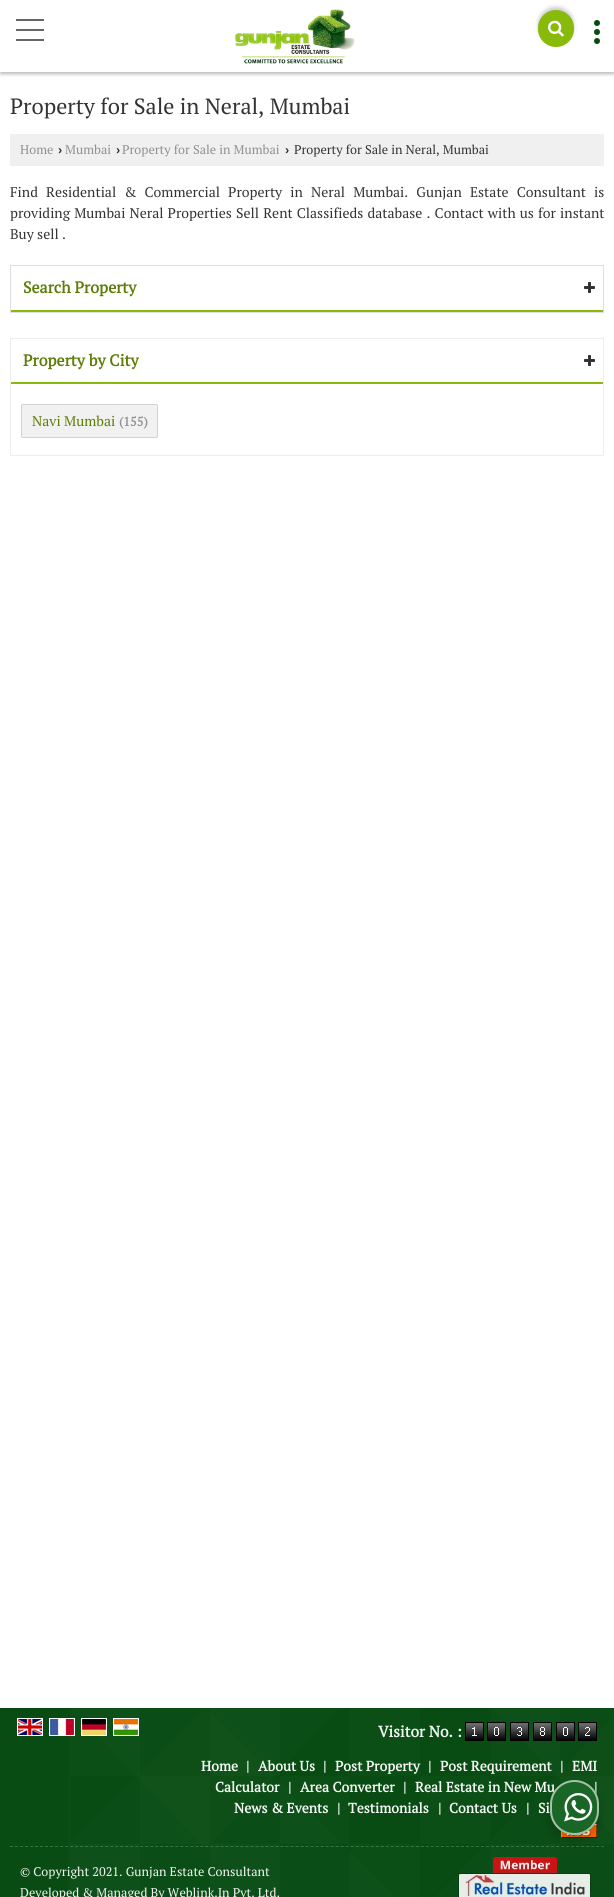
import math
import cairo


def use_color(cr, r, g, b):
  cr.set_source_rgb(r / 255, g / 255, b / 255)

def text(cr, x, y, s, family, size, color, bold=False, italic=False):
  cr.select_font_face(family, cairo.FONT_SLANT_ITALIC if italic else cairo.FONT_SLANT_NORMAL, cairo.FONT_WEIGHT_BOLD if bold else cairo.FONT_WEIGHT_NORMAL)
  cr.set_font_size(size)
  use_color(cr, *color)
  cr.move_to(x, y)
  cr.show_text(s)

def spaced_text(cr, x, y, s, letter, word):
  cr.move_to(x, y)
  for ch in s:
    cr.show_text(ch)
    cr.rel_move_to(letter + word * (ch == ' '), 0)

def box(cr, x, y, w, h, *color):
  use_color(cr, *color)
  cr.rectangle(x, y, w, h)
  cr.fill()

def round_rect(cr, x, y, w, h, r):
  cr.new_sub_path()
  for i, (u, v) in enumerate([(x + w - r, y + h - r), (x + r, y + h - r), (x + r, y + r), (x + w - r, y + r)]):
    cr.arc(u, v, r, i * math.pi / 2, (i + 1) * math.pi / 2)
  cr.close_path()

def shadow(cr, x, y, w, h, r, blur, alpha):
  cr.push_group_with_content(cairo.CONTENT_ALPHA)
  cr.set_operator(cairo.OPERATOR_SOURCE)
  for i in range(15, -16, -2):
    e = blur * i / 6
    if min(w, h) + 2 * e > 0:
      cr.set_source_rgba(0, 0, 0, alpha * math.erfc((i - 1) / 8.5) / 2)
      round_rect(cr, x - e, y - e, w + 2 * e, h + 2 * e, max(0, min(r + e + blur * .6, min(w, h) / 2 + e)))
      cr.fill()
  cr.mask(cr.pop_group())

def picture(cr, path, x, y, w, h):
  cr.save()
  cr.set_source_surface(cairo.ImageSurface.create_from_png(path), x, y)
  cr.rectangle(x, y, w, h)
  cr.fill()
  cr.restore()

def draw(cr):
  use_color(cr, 255, 255, 255)
  cr.paint()
  cr.save()
  cr.rectangle(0, 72, 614, 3)
  cr.clip()
  use_color(cr, 0, 0, 0)
  shadow(cr, 1, 2, 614, 72, 0, 1.5, 0.1)
  cr.restore()
  cr.save()
  cr.rectangle(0, 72, 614, 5)
  cr.clip()
  use_color(cr, 0, 0, 0)
  shadow(cr, 0, 2, 614, 72, 0, 2.5, 0.2)
  cr.restore()
  box(cr, 16, 29, 28, 2, 102, 102, 102)
  box(cr, 16, 19, 28, 2, 102, 102, 102)
  box(cr, 16, 39, 28, 2, 102, 102, 102)
  use_color(cr, 0, 0, 0)
  shadow(cr, 538, 7, 36, 37, 18, 2, 0.2)
  use_color(cr, 136, 186, 9)
  round_rect(cr, 538, 10, 36, 37, 18)
  cr.fill()
  picture(cr, "img_01.png", 548, 20, 16, 17)
  picture(cr, "img_02.png", 235, 9, 120, 55)
  use_color(cr, 8, 76, 19)
  cr.arc(597, 32, 3, 0, 2 * math.pi)
  cr.fill()
  cr.arc(597, 23, 3, 0, 2 * math.pi)
  cr.fill()
  cr.arc(597, 41, 3, 0, 2 * math.pi)
  cr.fill()
  box(cr, 10, 134, 594, 32, 240, 240, 240)
  cr.rectangle(10.5, 265.5, 593, 47)
  use_color(cr, 222, 222, 222)
  cr.set_line_width(1)
  cr.stroke()
  box(cr, 11, 310, 592, 2, 136, 186, 9)
  picture(cr, "img_03.png", 584, 282, 11, 11)
  cr.rectangle(10.5, 338.5, 593, 117)
  use_color(cr, 237, 237, 237)
  cr.stroke()
  box(cr, 11, 382, 592, 2, 136, 186, 9)
  picture(cr, "img_03.png", 584, 355, 11, 11)
  use_color(cr, 241, 241, 241)
  round_rect(cr, 21.5, 404.5, 136, 33, 1.5)
  cr.fill_preserve()
  use_color(cr, 210, 210, 210)
  cr.stroke()
  box(cr, 0, 1708, 614, 189, 8, 76, 19)
  picture(cr, "img_04.png", 68, 1708, 546, 189)
  cr.rectangle(17.5, 1718.5, 25, 17)
  use_color(cr, 255, 255, 255)
  cr.stroke()
  cr.rectangle(49.5, 1718.5, 25, 17)
  cr.stroke()
  cr.rectangle(81.5, 1718.5, 25, 17)
  cr.stroke()
  cr.rectangle(113.5, 1718.5, 25, 17)
  cr.stroke()
  picture(cr, "img_05.png", 18, 1719, 24, 16)
  picture(cr, "img_06.png", 50, 1719, 24, 16)
  picture(cr, "img_07.png", 82, 1719, 24, 16)
  picture(cr, "img_08.png", 114, 1719, 24, 16)
  picture(cr, "img_09.png", 465, 1722, 19, 19)
  picture(cr, "img_10.png", 487, 1722, 19, 19)
  picture(cr, "img_11.png", 510, 1722, 19, 19)
  picture(cr, "img_12.png", 533, 1722, 19, 19)
  picture(cr, "img_10.png", 556, 1722, 19, 19)
  picture(cr, "img_13.png", 578, 1722, 19, 19)
  picture(cr, "img_14.png", 561, 1824, 36, 14)
  cr.new_path()
  cr.move_to(10, 1846.5)
  cr.line_to(604, 1846.5)
  cr.set_source_rgba(1, 1, 1, 0.2)
  cr.set_dash([3, 2.01])
  cr.stroke()
  picture(cr, "img_15.png", 458, 1857, 133, 40)
  use_color(cr, 0, 0, 0)
  shadow(cr, 548, 1784, 53, 59, 26.5, 4, 0.14)
  text(cr, 10, 114, "Property for Sale in Neral, Mumbai", "PT Serif", 22, (51, 51, 51))
  text(cr, 20, 154, "Home", "PT Serif", 12.6, (144, 144, 144))
  text(cr, 58, 154, "›", "Liberation Sans", 12.6, (51, 51, 51), bold=True)
  text(cr, 65, 154, "Mumbai", "PT Serif", 12.6, (144, 144, 144))
  text(cr, 116, 154, "›", "Liberation Sans", 12.6, (51, 51, 51), bold=True)
  text(cr, 122, 154, "Property for Sale in Mumbai", "PT Serif", 12.6, (144, 144, 144))
  text(cr, 285, 154, "›", "Liberation Sans", 12.6, (51, 51, 51), bold=True)
  text(cr, 294, 154, "Property for Sale in Neral, Mumbai", "PT Serif", 12.6, (51, 51, 51))
  cr.set_font_size(14)
  spaced_text(cr, 10, 197, "Find Residential & Commercial Property in Neral Mumbai. Gunjan Estate Consultant is", 0, 4.75)
  spaced_text(cr, 10, 218, "providing Mumbai Neral Properties Sell Rent Classifieds database . Contact with us for instant", 0, 0.75)
  text(cr, 10, 239, "Buy sell .", "PT Serif", 14, (51, 51, 51))
  text(cr, 23, 293, "Search Property", "PT Serif", 16, (92, 125, 7), bold=True)
  text(cr, 23, 366, "Property by City", "PT Serif", 16, (92, 125, 7), bold=True)
  text(cr, 32, 426, "Navi Mumbai", "PT Serif", 14, (92, 125, 7))
  text(cr, 119, 426, "(155)", "PT Serif", 12.6, (144, 144, 144), bold=True)
  text(cr, 378, 1737, "Visitor No. :", "PT Serif", 15.5, (243, 246, 243), bold=True)
  text(cr, 201, 1771, "Home", "PT Serif", 14, (243, 246, 243), bold=True)
  text(cr, 246, 1771, "|", "PT Serif", 14, (243, 246, 243), bold=True)
  text(cr, 258, 1771, "About Us", "PT Serif", 14, (243, 246, 243), bold=True)
  text(cr, 323, 1771, "|", "PT Serif", 14, (243, 246, 243), bold=True)
  text(cr, 335, 1771, "Post Property", "PT Serif", 14, (243, 246, 243), bold=True)
  text(cr, 428, 1771, "|", "PT Serif", 14, (243, 246, 243), bold=True)
  text(cr, 440, 1771, "Post Requirement", "PT Serif", 14, (243, 246, 243), bold=True)
  text(cr, 560, 1771, "|", "PT Serif", 14, (243, 246, 243), bold=True)
  text(cr, 572, 1771, "EMI", "PT Serif", 14, (243, 246, 243), bold=True)
  text(cr, 215, 1792, "Calculator", "PT Serif", 14, (243, 246, 243), bold=True)
  text(cr, 288, 1792, "|", "PT Serif", 14, (243, 246, 243), bold=True)
  text(cr, 300, 1792, "Area Converter", "PT Serif", 14, (243, 246, 243), bold=True)
  text(cr, 403, 1792, "|", "PT Serif", 14, (243, 246, 243), bold=True)
  text(cr, 415, 1792, "Real Estate in New Mu", "PT Serif", 14, (243, 246, 243), bold=True)
  text(cr, 594, 1792, "|", "PT Serif", 14, (243, 246, 243), bold=True)
  text(cr, 234, 1813, "News & Events", "PT Serif", 14, (243, 246, 243), bold=True)
  text(cr, 337, 1813, "|", "PT Serif", 14, (243, 246, 243), bold=True)
  text(cr, 348, 1813, "Testimonials", "PT Serif", 14, (243, 246, 243), bold=True)
  text(cr, 438, 1813, "|", "PT Serif", 14, (243, 246, 243), bold=True)
  text(cr, 449, 1813, "Contact Us", "PT Serif", 14, (243, 246, 243), bold=True)
  text(cr, 526, 1813, "|", "PT Serif", 14, (243, 246, 243), bold=True)
  text(cr, 538, 1813, "Si", "PT Serif", 14, (243, 246, 243), bold=True)
  text(cr, 20, 1876, "© Copyright 2021. Gunjan Estate Consultant", "PT Serif", 12.6, (243, 246, 243))
  text(cr, 20, 1897, "Developed & Managed By Weblink.In Pvt. Ltd.", "PT Serif", 12.6, (243, 246, 243))
  use_color(cr, 25, 102, 38)
  round_rect(cr, 550, 1780, 49, 55, 24.5)
  cr.fill()
  round_rect(cr, 551, 1781, 47, 53, 23.5)
  cr.set_source_rgba(1, 1, 1, 0.6)
  cr.set_line_width(2)
  cr.set_dash([])
  cr.stroke()
  picture(cr, "img_16.png", 564, 1793, 29, 29)


surface = cairo.ImageSurface(cairo.FORMAT_RGB24, 614, 1897)
cr = cairo.Context(surface)
options = cairo.FontOptions()
options.set_hint_metrics(cairo.HINT_METRICS_OFF)
options.set_hint_style(cairo.HINT_STYLE_NONE)
cr.set_font_options(options)
cr.set_miter_limit(4)
draw(cr)
surface.write_to_png("out.png")
